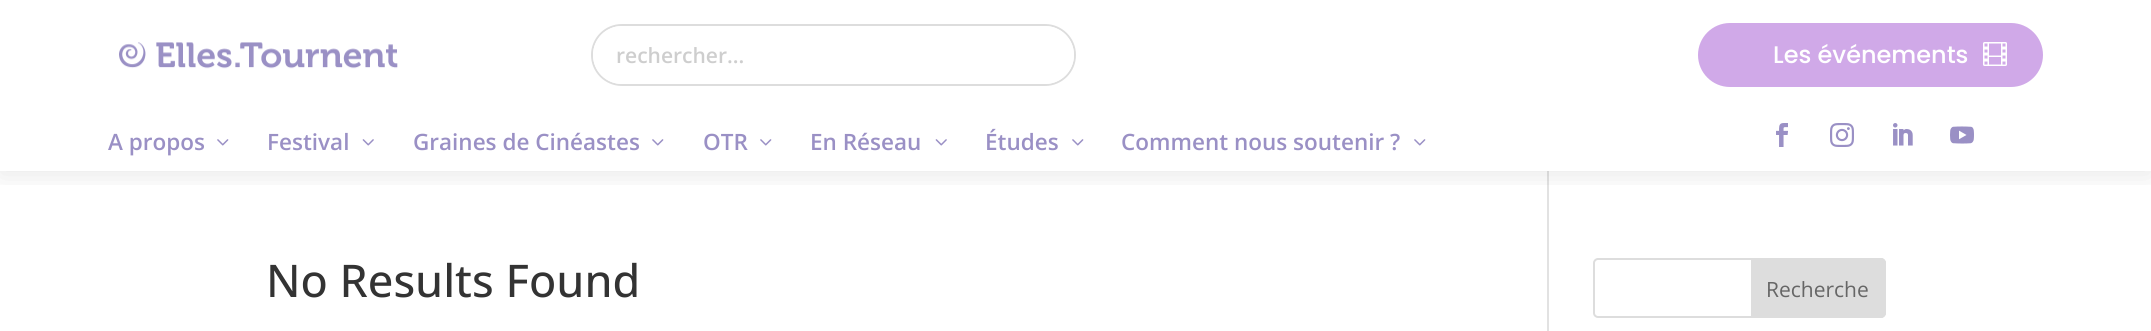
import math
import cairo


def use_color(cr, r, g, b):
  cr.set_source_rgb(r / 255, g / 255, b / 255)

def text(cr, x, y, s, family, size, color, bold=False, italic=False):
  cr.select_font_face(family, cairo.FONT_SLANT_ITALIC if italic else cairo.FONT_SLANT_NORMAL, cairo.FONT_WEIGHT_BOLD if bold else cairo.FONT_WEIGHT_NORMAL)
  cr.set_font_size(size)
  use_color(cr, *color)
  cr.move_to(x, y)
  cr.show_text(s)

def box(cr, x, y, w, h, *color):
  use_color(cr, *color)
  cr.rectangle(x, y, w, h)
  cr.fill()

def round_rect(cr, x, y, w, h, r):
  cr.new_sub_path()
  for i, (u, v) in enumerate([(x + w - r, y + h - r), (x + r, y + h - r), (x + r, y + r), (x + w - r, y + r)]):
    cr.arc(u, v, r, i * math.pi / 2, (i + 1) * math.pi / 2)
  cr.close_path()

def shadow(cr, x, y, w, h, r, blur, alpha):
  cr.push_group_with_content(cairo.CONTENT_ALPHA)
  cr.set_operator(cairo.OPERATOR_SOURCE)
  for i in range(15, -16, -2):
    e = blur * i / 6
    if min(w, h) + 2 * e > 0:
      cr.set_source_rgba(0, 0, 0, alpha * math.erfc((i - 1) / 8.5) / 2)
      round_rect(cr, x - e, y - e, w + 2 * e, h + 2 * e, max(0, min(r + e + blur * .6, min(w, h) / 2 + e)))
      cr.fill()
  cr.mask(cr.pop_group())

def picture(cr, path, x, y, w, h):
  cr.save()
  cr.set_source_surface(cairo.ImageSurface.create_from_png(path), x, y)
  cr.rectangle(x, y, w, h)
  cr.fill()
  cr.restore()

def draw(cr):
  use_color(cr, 255, 255, 255)
  cr.paint()
  box(cr, 1547, 171, 2, 160, 226, 226, 226)
  cr.save()
  cr.rectangle(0, 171, 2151, 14)
  cr.clip()
  use_color(cr, 0, 0, 0)
  shadow(cr, 0, 3, 2151, 171, 0, 13.5, 0.1)
  cr.restore()
  picture(cr, "img_01.png", 119, 42, 279, 27)
  round_rect(cr, 592, 25, 483, 60, 30)
  use_color(cr, 221, 221, 221)
  cr.stroke()
  use_color(cr, 255, 255, 255)
  round_rect(cr, 593, 26, 481, 58, 29)
  cr.fill()
  use_color(cr, 208, 169, 232)
  round_rect(cr, 1698, 23, 345, 64, 32)
  cr.fill()
  picture(cr, "img_02.png", 1983, 42, 24, 24)
  picture(cr, "img_03.png", 217, 139, 12, 7)
  picture(cr, "img_04.png", 362, 139, 12, 7)
  picture(cr, "img_03.png", 652, 139, 12, 7)
  picture(cr, "img_03.png", 760, 139, 12, 7)
  picture(cr, "img_04.png", 935, 139, 12, 7)
  picture(cr, "img_03.png", 1072, 139, 12, 7)
  picture(cr, "img_03.png", 1414, 139, 12, 7)
  picture(cr, "img_05.png", 1776, 123, 12, 24)
  picture(cr, "img_06.png", 1830, 123, 24, 24)
  picture(cr, "img_07.png", 1893, 123, 20, 23)
  picture(cr, "img_08.png", 1950, 126, 24, 18)
  round_rect(cr, 1594, 259, 291, 58, 4)
  use_color(cr, 221, 221, 221)
  cr.stroke()
  cr.new_path()
  cr.move_to(1752, 259)
  cr.line_to(1881, 259)
  cr.curve_to(1883, 259, 1885, 261, 1885, 263)
  cr.line_to(1885, 313)
  cr.curve_to(1885, 315, 1883, 317, 1881, 317)
  cr.line_to(1752, 317)
  cr.close_path()
  cr.fill_preserve()
  cr.stroke()
  text(cr, 616, 63, "rechercher...", "Open Sans SemiBold", 21, (206, 206, 206))
  text(cr, 1773, 63, "Les événements", "Poppins Medium", 24, (255, 255, 255))
  text(cr, 108, 150, "A propos", "Open Sans SemiBold", 22.5, (154, 144, 197))
  text(cr, 267, 150, "Festival", "Open Sans SemiBold", 22.5, (154, 144, 197))
  text(cr, 413, 150, "Graines de Cinéastes", "Open Sans SemiBold", 22.5, (154, 144, 197))
  text(cr, 703, 150, "OTR", "Open Sans SemiBold", 22.5, (154, 144, 197))
  text(cr, 810, 150, "En Réseau", "Open Sans SemiBold", 22.5, (154, 144, 197))
  text(cr, 985, 150, "Études", "Open Sans SemiBold", 22.5, (154, 144, 197))
  text(cr, 1121, 150, "Comment nous soutenir ?", "Open Sans SemiBold", 22.5, (154, 144, 197))
  text(cr, 266, 297, "No Results Found", "Open Sans Medium", 45, (51, 51, 51))
  text(cr, 1766, 297, "Recherche", "Open Sans", 21, (102, 102, 102))


surface = cairo.ImageSurface(cairo.FORMAT_RGB24, 2151, 331)
cr = cairo.Context(surface)
options = cairo.FontOptions()
options.set_hint_metrics(cairo.HINT_METRICS_OFF)
options.set_hint_style(cairo.HINT_STYLE_NONE)
cr.set_font_options(options)
cr.set_miter_limit(4)
draw(cr)
surface.write_to_png("out.png")
